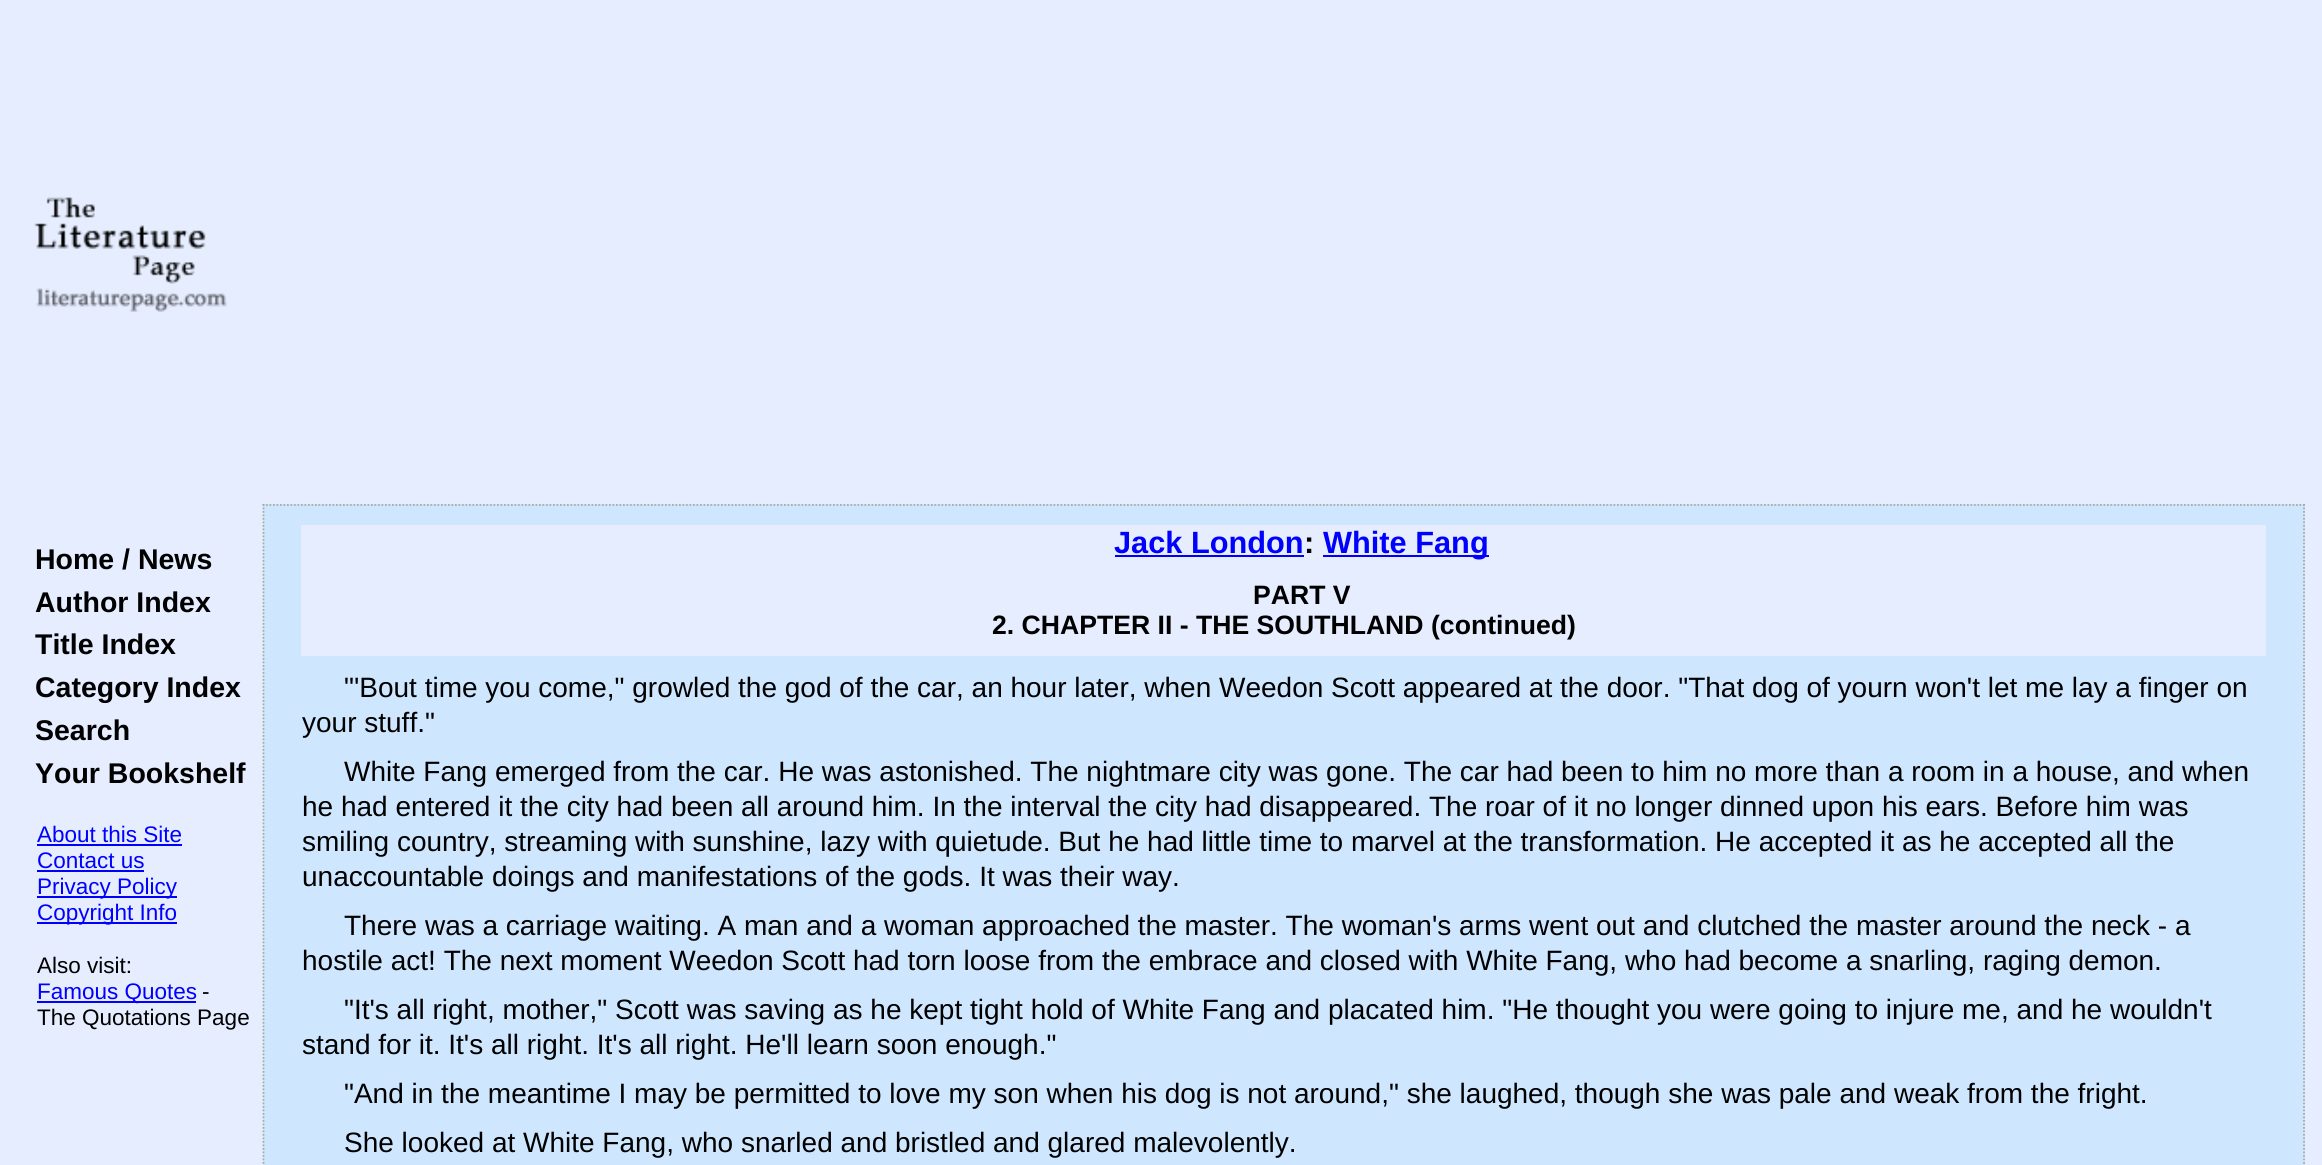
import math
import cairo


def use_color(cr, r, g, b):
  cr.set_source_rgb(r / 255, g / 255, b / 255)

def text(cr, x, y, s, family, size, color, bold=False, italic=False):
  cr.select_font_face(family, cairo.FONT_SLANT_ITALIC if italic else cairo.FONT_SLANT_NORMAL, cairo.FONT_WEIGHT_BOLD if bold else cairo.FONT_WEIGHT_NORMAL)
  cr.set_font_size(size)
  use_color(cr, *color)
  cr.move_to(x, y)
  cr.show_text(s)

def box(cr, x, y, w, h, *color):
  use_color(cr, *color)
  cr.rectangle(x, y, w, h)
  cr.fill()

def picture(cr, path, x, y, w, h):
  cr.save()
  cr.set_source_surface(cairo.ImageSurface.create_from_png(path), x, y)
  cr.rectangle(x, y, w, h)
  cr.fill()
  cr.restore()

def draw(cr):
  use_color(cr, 230, 237, 255)
  cr.paint()
  picture(cr, "img_01.png", 34, 197, 194, 115)
  box(cr, 37, 844, 145, 2, 0, 0, 255)
  box(cr, 37, 870, 107, 2, 0, 0, 255)
  box(cr, 37, 896, 140, 2, 0, 0, 255)
  box(cr, 37, 922, 140, 2, 0, 0, 255)
  box(cr, 37, 1001, 159, 2, 0, 0, 255)
  box(cr, 263, 504, 2042, 661, 206, 231, 255)
  cr.new_path()
  cr.move_to(262.5, 505)
  cr.line_to(2305, 505)
  use_color(cr, 166, 173, 159)
  cr.set_line_width(1.8)
  cr.set_dash([1.75, 1.75])
  cr.stroke()
  cr.new_path()
  cr.move_to(2304, 504)
  cr.line_to(2304, 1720)
  cr.stroke()
  cr.new_path()
  cr.move_to(263.5, 504)
  cr.line_to(263.5, 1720)
  cr.stroke()
  box(cr, 301, 525, 1965, 131, 230, 237, 255)
  box(cr, 1115, 555, 189, 2, 0, 0, 255)
  box(cr, 1323, 555, 166, 2, 0, 0, 255)
  text(cr, 35, 569, "Home / News", "Liberation Sans", 28.5, (0, 0, 0), bold=True)
  text(cr, 35, 612, "Author Index", "Liberation Sans", 28.5, (0, 0, 0), bold=True)
  text(cr, 35, 654, "Title Index", "Liberation Sans", 28.5, (0, 0, 0), bold=True)
  text(cr, 35, 697, "Category Index", "Liberation Sans", 28.5, (0, 0, 0), bold=True)
  text(cr, 35, 740, "Search", "Liberation Sans", 28.5, (0, 0, 0), bold=True)
  text(cr, 35, 783, "Your Bookshelf", "Liberation Sans", 28.5, (0, 0, 0), bold=True)
  text(cr, 37, 842, "About this Site", "Liberation Sans", 22.5, (0, 0, 255))
  text(cr, 37, 868, "Contact us", "Liberation Sans", 22.5, (0, 0, 255))
  text(cr, 37, 894, "Privacy Policy", "Liberation Sans", 22.5, (0, 0, 255))
  text(cr, 37, 920, "Copyright Info", "Liberation Sans", 22.5, (0, 0, 255))
  text(cr, 37, 973, "Also visit:", "Liberation Sans", 22.5, (0, 0, 0))
  text(cr, 37, 999, "Famous Quotes", "Liberation Sans", 22.5, (0, 0, 255))
  text(cr, 202, 999, "-", "Liberation Sans", 22.5, (0, 0, 0))
  text(cr, 37, 1025, "The Quotations Page", "Liberation Sans", 22.5, (0, 0, 0))
  text(cr, 1114, 553, "Jack London", "Liberation Sans", 30.75, (0, 0, 255), bold=True)
  text(cr, 1304, 553, ":", "Liberation Sans", 30.75, (0, 0, 0), bold=True)
  text(cr, 1323, 553, "White Fang", "Liberation Sans", 30.75, (0, 0, 255), bold=True)
  text(cr, 1253, 604, "PART V", "Liberation Sans", 26.6, (0, 0, 0), bold=True)
  text(cr, 992, 634, "2. CHAPTER II - THE SOUTHLAND", "Liberation Sans", 26.6, (0, 0, 0), bold=True)
  text(cr, 1431, 634, "(continued)", "Liberation Sans", 26.6, (0, 0, 0), bold=True)
  text(cr, 344, 697, "\"'Bout time you come,\" growled the god of the car, an hour later, when Weedon Scott appeared at the door. \"That dog of yourn won't let me lay a finger on", "Liberation Sans", 28, (0, 0, 0))
  text(cr, 302, 732, "your stuff.\"", "Liberation Sans", 28, (0, 0, 0))
  text(cr, 344, 781, "White Fang emerged from the car. He was astonished. The nightmare city was gone. The car had been to him no more than a room in a house, and when", "Liberation Sans", 28, (0, 0, 0))
  text(cr, 302, 816, "he had entered it the city had been all around him. In the interval the city had disappeared. The roar of it no longer dinned upon his ears. Before him was", "Liberation Sans", 28, (0, 0, 0))
  text(cr, 302, 851, "smiling country, streaming with sunshine, lazy with quietude. But he had little time to marvel at the transformation. He accepted it as he accepted all the", "Liberation Sans", 28, (0, 0, 0))
  text(cr, 302, 886, "unaccountable doings and manifestations of the gods. It was their way.", "Liberation Sans", 28, (0, 0, 0))
  text(cr, 344, 935, "There was a carriage waiting. A man and a woman approached the master. The woman's arms went out and clutched the master around the neck - a", "Liberation Sans", 28, (0, 0, 0))
  text(cr, 302, 970, "hostile act! The next moment Weedon Scott had torn loose from the embrace and closed with White Fang, who had become a snarling, raging demon.", "Liberation Sans", 28, (0, 0, 0))
  text(cr, 344, 1019, "\"It's all right, mother,\" Scott was saving as he kept tight hold of White Fang and placated him. \"He thought you were going to injure me, and he wouldn't", "Liberation Sans", 28, (0, 0, 0))
  text(cr, 302, 1054, "stand for it. It's all right. It's all right. He'll learn soon enough.\"", "Liberation Sans", 28, (0, 0, 0))
  text(cr, 344, 1103, "\"And in the meantime I may be permitted to love my son when his dog is not around,\" she laughed, though she was pale and weak from the fright.", "Liberation Sans", 28, (0, 0, 0))
  text(cr, 344, 1152, "She looked at White Fang, who snarled and bristled and glared malevolently.", "Liberation Sans", 28, (0, 0, 0))


surface = cairo.ImageSurface(cairo.FORMAT_RGB24, 2322, 1165)
cr = cairo.Context(surface)
options = cairo.FontOptions()
options.set_hint_metrics(cairo.HINT_METRICS_OFF)
options.set_hint_style(cairo.HINT_STYLE_NONE)
cr.set_font_options(options)
cr.set_miter_limit(4)
draw(cr)
surface.write_to_png("out.png")
